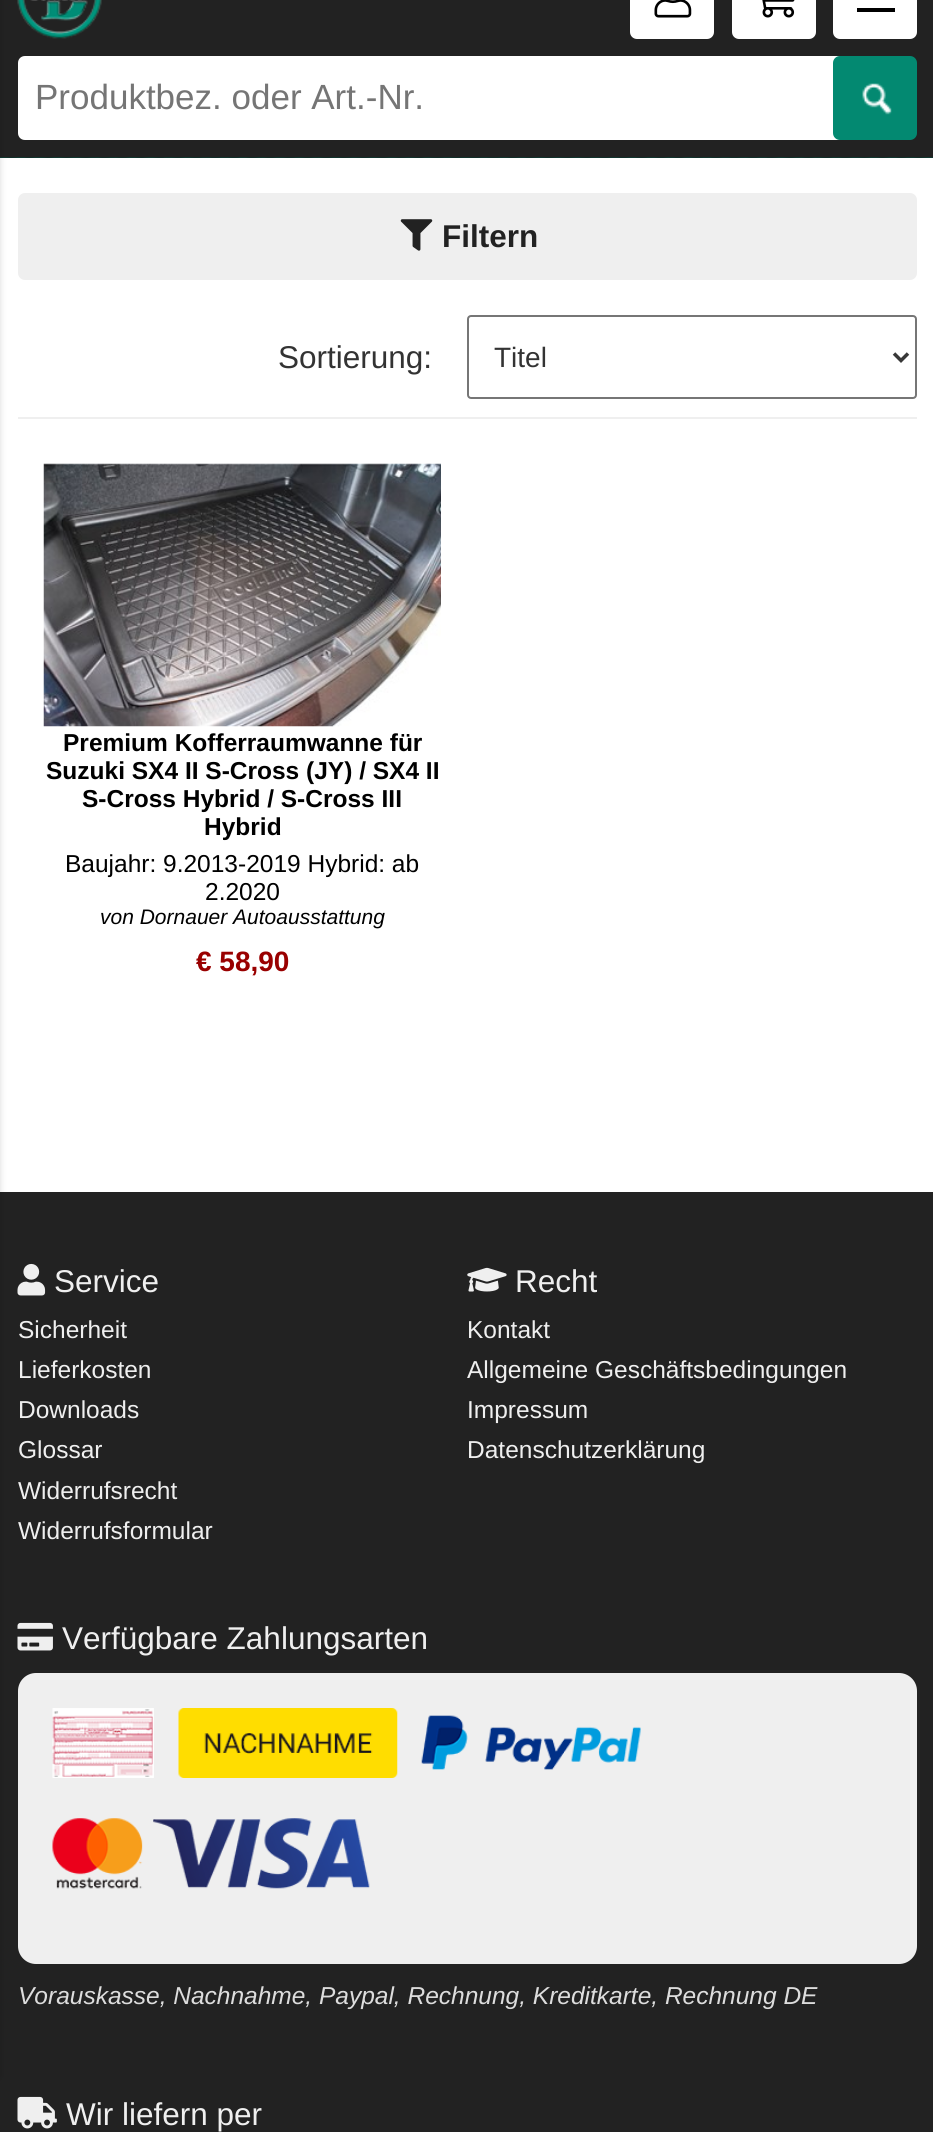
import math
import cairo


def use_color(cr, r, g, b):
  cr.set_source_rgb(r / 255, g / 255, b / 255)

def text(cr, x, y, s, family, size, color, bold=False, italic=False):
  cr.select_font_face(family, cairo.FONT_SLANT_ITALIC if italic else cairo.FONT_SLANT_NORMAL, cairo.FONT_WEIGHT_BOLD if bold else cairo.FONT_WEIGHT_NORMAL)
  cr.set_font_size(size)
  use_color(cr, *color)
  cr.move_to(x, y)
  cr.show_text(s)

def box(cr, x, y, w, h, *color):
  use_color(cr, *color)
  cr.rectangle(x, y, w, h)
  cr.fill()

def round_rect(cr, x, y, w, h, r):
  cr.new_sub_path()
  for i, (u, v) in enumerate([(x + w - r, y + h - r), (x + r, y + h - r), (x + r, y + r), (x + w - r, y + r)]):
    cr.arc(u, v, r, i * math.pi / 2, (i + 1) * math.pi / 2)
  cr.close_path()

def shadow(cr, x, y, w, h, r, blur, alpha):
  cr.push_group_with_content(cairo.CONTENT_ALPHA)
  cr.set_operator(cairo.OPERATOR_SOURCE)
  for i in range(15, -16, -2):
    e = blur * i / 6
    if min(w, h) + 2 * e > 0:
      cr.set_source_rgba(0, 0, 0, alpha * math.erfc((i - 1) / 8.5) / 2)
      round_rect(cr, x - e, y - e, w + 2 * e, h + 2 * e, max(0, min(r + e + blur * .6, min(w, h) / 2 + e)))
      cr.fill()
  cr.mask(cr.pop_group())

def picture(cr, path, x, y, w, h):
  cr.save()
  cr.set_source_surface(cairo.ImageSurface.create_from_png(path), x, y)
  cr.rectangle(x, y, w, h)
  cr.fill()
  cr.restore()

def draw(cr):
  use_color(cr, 34, 34, 34)
  cr.paint()
  picture(cr, "img_05.png", 0, 157, 933, 1)
  box(cr, 0, 158, 933, 1034, 255, 255, 255)
  use_color(cr, 0, 0, 0)
  shadow(cr, -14, -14, 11, 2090, 0, 4.5, 0.3)
  picture(cr, "img_01.png", 17, 0, 85, 39)
  use_color(cr, 255, 255, 255)
  round_rect(cr, 630, -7, 84, 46, 7)
  cr.fill()
  picture(cr, "img_02.png", 654, 0, 38, 18)
  round_rect(cr, 732, -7, 84, 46, 7)
  cr.fill()
  picture(cr, "img_03.png", 762, 0, 33, 18)
  round_rect(cr, 833, -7, 84, 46, 7)
  cr.fill()
  box(cr, 857, 8, 38, 4, 0, 0, 0)
  use_color(cr, 255, 255, 255)
  cr.new_path()
  cr.move_to(25, 56)
  cr.line_to(903, 56)
  cr.curve_to(910.5, 56, 917, 62.5, 917, 70)
  cr.line_to(917, 126)
  cr.curve_to(917, 133.5, 910.5, 140, 903, 140)
  cr.line_to(25, 140)
  cr.curve_to(21, 140, 18, 137, 18, 133)
  cr.line_to(18, 63)
  cr.curve_to(18, 59, 21, 56, 25, 56)
  cr.close_path()
  cr.fill()
  use_color(cr, 3, 137, 113)
  round_rect(cr, 833, 56, 84, 84, 7)
  cr.fill()
  picture(cr, "img_04.png", 862, 83, 30, 32)
  use_color(cr, 239, 239, 239)
  round_rect(cr, 19, 194, 897, 85, 6)
  cr.fill_preserve()
  cr.stroke()
  picture(cr, "img_06.png", 400, 219, 33, 32)
  box(cr, 18, 417, 899, 2, 239, 239, 239)
  round_rect(cr, 468, 316, 448, 82, 3)
  use_color(cr, 118, 118, 118)
  cr.stroke()
  cr.new_path()
  cr.move_to(894, 353.5)
  cr.line_to(901, 360.5)
  cr.line_to(908, 353.5)
  use_color(cr, 56, 56, 56)
  cr.set_line_width(3.5)
  cr.stroke()
  picture(cr, "img_07.png", 43, 463, 398, 264)
  picture(cr, "img_08.png", 17, 1263, 29, 33)
  picture(cr, "img_09.png", 467, 1267, 40, 25)
  picture(cr, "img_10.png", 17, 1622, 36, 29)
  use_color(cr, 239, 239, 239)
  round_rect(cr, 18, 1673, 899, 291, 18)
  cr.fill()
  picture(cr, "img_11.png", 52, 1708, 102, 70)
  picture(cr, "img_12.png", 178, 1708, 220, 70)
  picture(cr, "img_13.png", 421, 1715, 220, 55)
  picture(cr, "img_14.png", 52, 1818, 318, 71)
  picture(cr, "img_15.png", 17, 2096, 40, 33)
  text(cr, 35, 109, "Produktbez. oder Art.-Nr.", "Liberation Sans", 35, (117, 117, 117))
  text(cr, 442, 247, "Filtern", "Liberation Sans", 31.5, (34, 34, 34), bold=True)
  text(cr, 278, 368, "Sortierung:", "Liberation Sans", 31.5, (51, 51, 51))
  text(cr, 494, 367, "Titel", "Liberation Sans", 28, (51, 51, 51))
  text(cr, 63, 751, "Premium Kofferraumwanne für", "Liberation Sans", 24.5, (0, 0, 0), bold=True)
  text(cr, 46, 779, "Suzuki SX4 II S-Cross (JY) / SX4 II", "Liberation Sans", 24.5, (0, 0, 0), bold=True)
  text(cr, 82, 807, "S-Cross Hybrid / S-Cross III", "Liberation Sans", 24.5, (0, 0, 0), bold=True)
  text(cr, 204, 835, "Hybrid", "Liberation Sans", 24.5, (0, 0, 0), bold=True)
  text(cr, 65, 872, "Baujahr: 9.2013-2019 Hybrid: ab", "Liberation Sans", 24.5, (0, 0, 0))
  text(cr, 205, 900, "2.2020", "Liberation Sans", 24.5, (0, 0, 0))
  text(cr, 100, 924, "von Dornauer Autoausstattung", "Liberation Sans", 21, (0, 0, 0), italic=True)
  text(cr, 196, 971, "€ 58,90", "Liberation Sans", 28, (153, 0, 0), bold=True)
  text(cr, 54, 1292, "Service", "Liberation Sans", 31.5, (239, 239, 239))
  text(cr, 18, 1338, "Sicherheit", "Liberation Sans", 24.5, (239, 239, 239))
  text(cr, 18, 1378, "Lieferkosten", "Liberation Sans", 24.5, (239, 239, 239))
  text(cr, 18, 1418, "Downloads", "Liberation Sans", 24.5, (239, 239, 239))
  text(cr, 18, 1458, "Glossar", "Liberation Sans", 24.5, (239, 239, 239))
  text(cr, 18, 1499, "Widerrufsrecht", "Liberation Sans", 24.5, (239, 239, 239))
  text(cr, 18, 1539, "Widerrufsformular", "Liberation Sans", 24.5, (239, 239, 239))
  text(cr, 515, 1292, "Recht", "Liberation Sans", 31.5, (239, 239, 239))
  text(cr, 467, 1338, "Kontakt", "Liberation Sans", 24.5, (239, 239, 239))
  text(cr, 467, 1378, "Allgemeine Geschäftsbedingungen", "Liberation Sans", 24.5, (239, 239, 239))
  text(cr, 467, 1418, "Impressum", "Liberation Sans", 24.5, (239, 239, 239))
  text(cr, 467, 1458, "Datenschutzerklärung", "Liberation Sans", 24.5, (239, 239, 239))
  text(cr, 62, 1649, "Verfügbare Zahlungsarten", "Liberation Sans", 31.5, (239, 239, 239))
  text(cr, 18, 2004, "Vorauskasse, Nachnahme, Paypal, Rechnung, Kreditkarte, Rechnung DE", "Liberation Sans", 24.5, (221, 221, 221), italic=True)
  text(cr, 66, 2125, "Wir liefern per", "Liberation Sans", 31.5, (239, 239, 239))


surface = cairo.ImageSurface(cairo.FORMAT_RGB24, 933, 2132)
cr = cairo.Context(surface)
options = cairo.FontOptions()
options.set_hint_metrics(cairo.HINT_METRICS_OFF)
options.set_hint_style(cairo.HINT_STYLE_NONE)
cr.set_font_options(options)
cr.set_miter_limit(4)
draw(cr)
surface.write_to_png("out.png")
